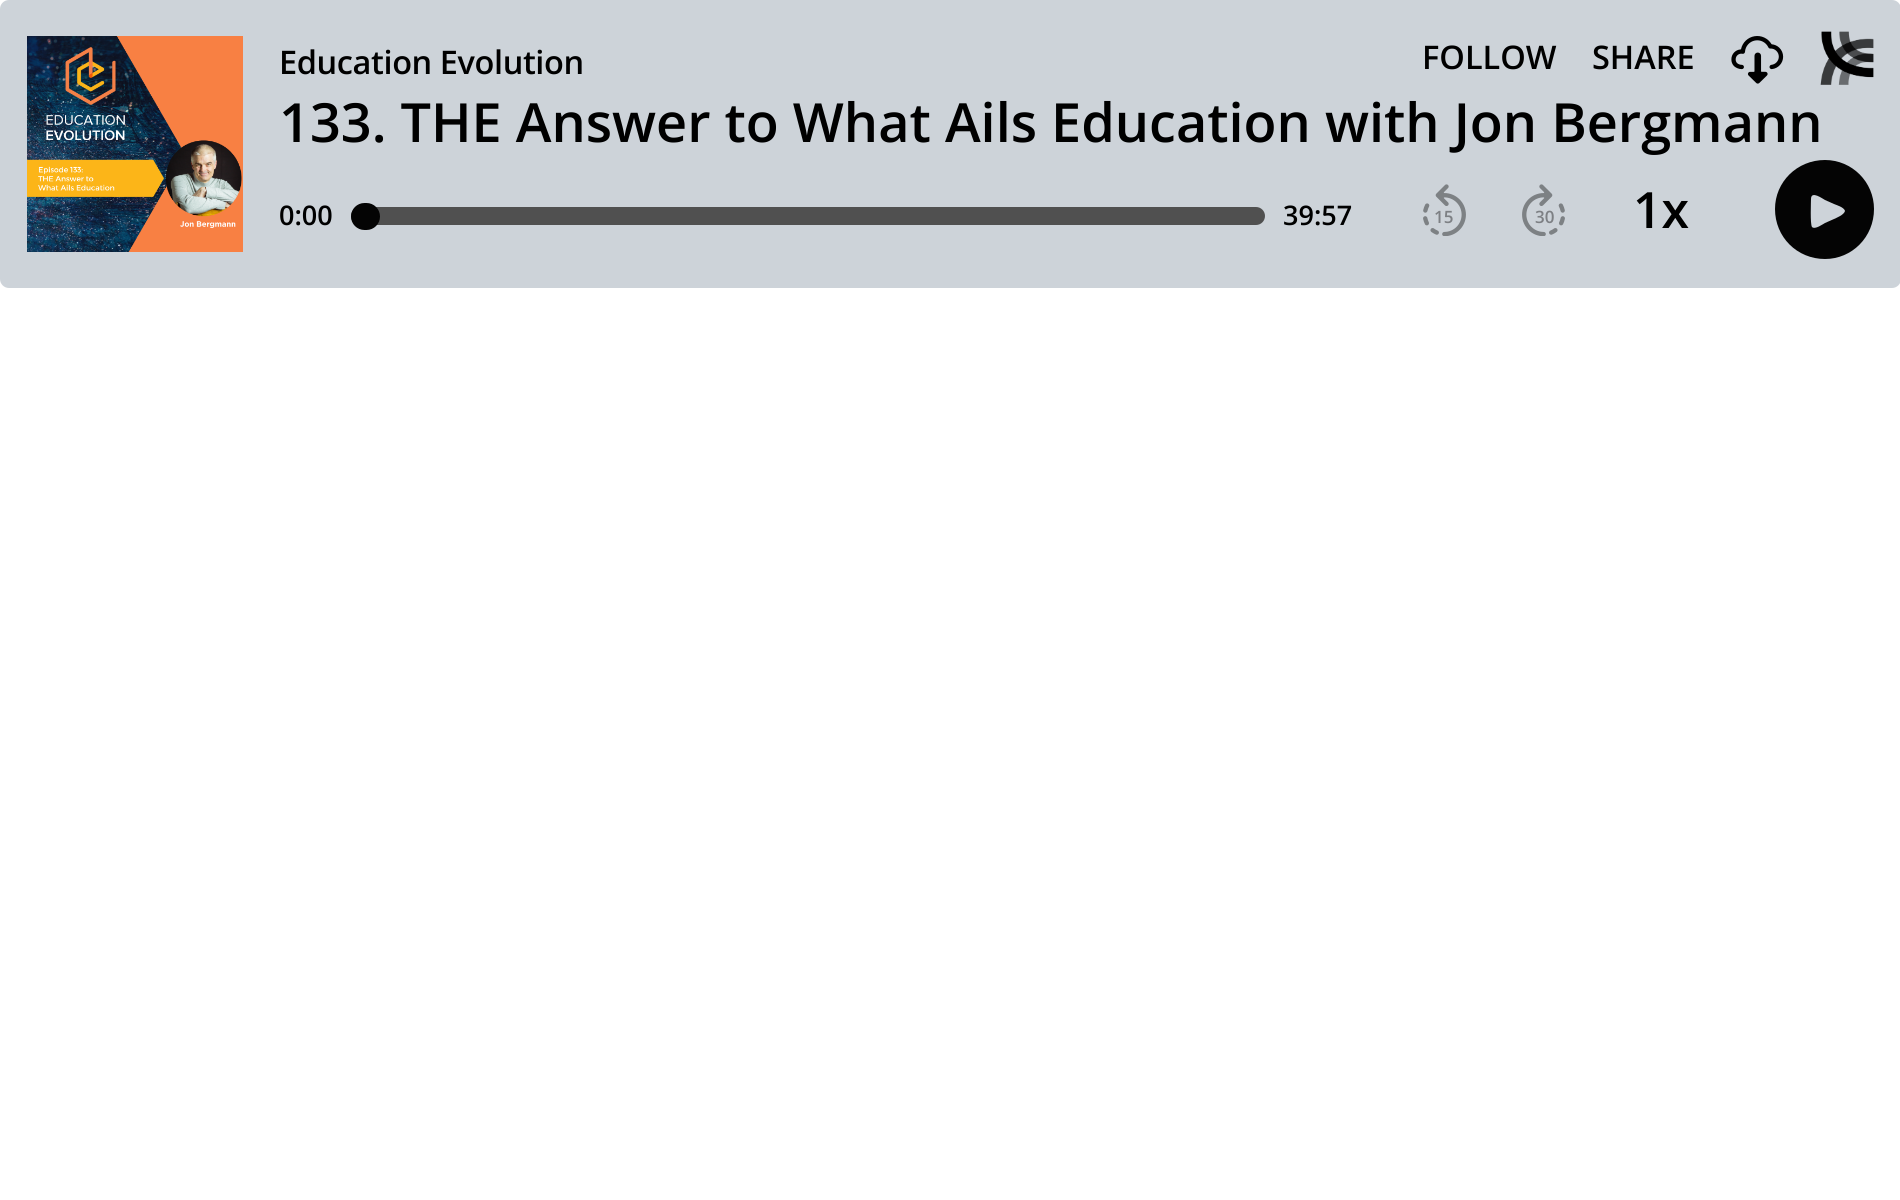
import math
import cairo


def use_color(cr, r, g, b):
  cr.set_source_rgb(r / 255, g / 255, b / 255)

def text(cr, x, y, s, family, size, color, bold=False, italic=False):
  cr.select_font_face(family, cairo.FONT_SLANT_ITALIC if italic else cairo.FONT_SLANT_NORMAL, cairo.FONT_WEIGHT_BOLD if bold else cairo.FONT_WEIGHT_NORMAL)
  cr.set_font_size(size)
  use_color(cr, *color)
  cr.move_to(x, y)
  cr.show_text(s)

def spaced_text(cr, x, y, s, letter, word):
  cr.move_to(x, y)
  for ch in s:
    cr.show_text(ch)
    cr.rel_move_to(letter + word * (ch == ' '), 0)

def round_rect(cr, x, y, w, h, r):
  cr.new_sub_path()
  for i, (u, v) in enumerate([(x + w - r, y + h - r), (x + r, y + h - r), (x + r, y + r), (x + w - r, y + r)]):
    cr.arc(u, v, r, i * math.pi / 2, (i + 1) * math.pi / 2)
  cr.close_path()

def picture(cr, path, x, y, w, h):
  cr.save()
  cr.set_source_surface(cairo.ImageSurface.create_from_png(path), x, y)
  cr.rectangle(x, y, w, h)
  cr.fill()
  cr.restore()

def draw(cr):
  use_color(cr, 255, 255, 255)
  cr.paint()
  use_color(cr, 205, 211, 217)
  round_rect(cr, 0, 0, 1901, 288, 9)
  cr.fill()
  picture(cr, "img_01.png", 27, 36, 216, 216)
  picture(cr, "img_02.png", 1731, 36, 53, 48)
  picture(cr, "img_03.png", 1820, 31, 54, 54)
  use_color(cr, 80, 80, 80)
  round_rect(cr, 351, 207, 914, 18, 9)
  cr.fill()
  use_color(cr, 4, 4, 4)
  round_rect(cr, 351, 203, 29, 27, 13.5)
  cr.fill()
  picture(cr, "img_04.png", 1423, 184, 43, 52)
  picture(cr, "img_05.png", 1522, 184, 43, 52)
  cr.new_path()
  cr.move_to(1825, 259)
  cr.curve_to(1852, 259, 1874, 237, 1874, 209)
  cr.curve_to(1874, 182, 1852, 160, 1825, 160)
  cr.curve_to(1797, 160, 1775, 182, 1775, 209)
  cr.curve_to(1775, 237, 1797, 259, 1825, 259)
  cr.close_path()
  cr.move_to(1845, 211)
  cr.curve_to(1844, 215, 1836, 218, 1834, 219)
  cr.line_to(1825, 223)
  cr.curve_to(1823, 224, 1815, 230, 1812, 227)
  cr.curve_to(1810, 224, 1811, 202, 1811, 199)
  cr.curve_to(1811, 190, 1823, 199, 1825, 200)
  cr.line_to(1834, 204)
  cr.curve_to(1836, 205, 1844, 207, 1845, 211)
  cr.close_path()
  cr.fill()
  cr.select_font_face("Open Sans SemiBold")
  cr.set_font_size(32.5)
  use_color(cr, 0, 0, 0)
  spaced_text(cr, 279, 74, "Education Evolution", -0.4, 0)
  text(cr, 1422, 69, "FOLLOW", "Open Sans SemiBold", 32.5, (0, 0, 0))
  text(cr, 1592, 69, "SHARE", "Open Sans SemiBold", 32.5, (0, 0, 0))
  text(cr, 279, 142, "133. THE Answer to What Ails Education with Jon Bergmann", "Open Sans SemiBold", 54, (0, 0, 0))
  text(cr, 279, 225, "0:00", "Open Sans SemiBold", 27, (0, 0, 0))
  text(cr, 1283, 225, "39:57", "Open Sans SemiBold", 27, (0, 0, 0))
  text(cr, 1434, 223, "15", "Open Sans SemiBold", 17, (125, 128, 132))
  text(cr, 1535, 223, "30", "Open Sans SemiBold", 17, (125, 128, 132))
  text(cr, 1633, 228, "1x", "Open Sans SemiBold", 50, (0, 0, 0))


surface = cairo.ImageSurface(cairo.FORMAT_RGB24, 1900, 1200)
cr = cairo.Context(surface)
options = cairo.FontOptions()
options.set_hint_metrics(cairo.HINT_METRICS_OFF)
options.set_hint_style(cairo.HINT_STYLE_NONE)
cr.set_font_options(options)
cr.set_miter_limit(4)
draw(cr)
surface.write_to_png("out.png")
